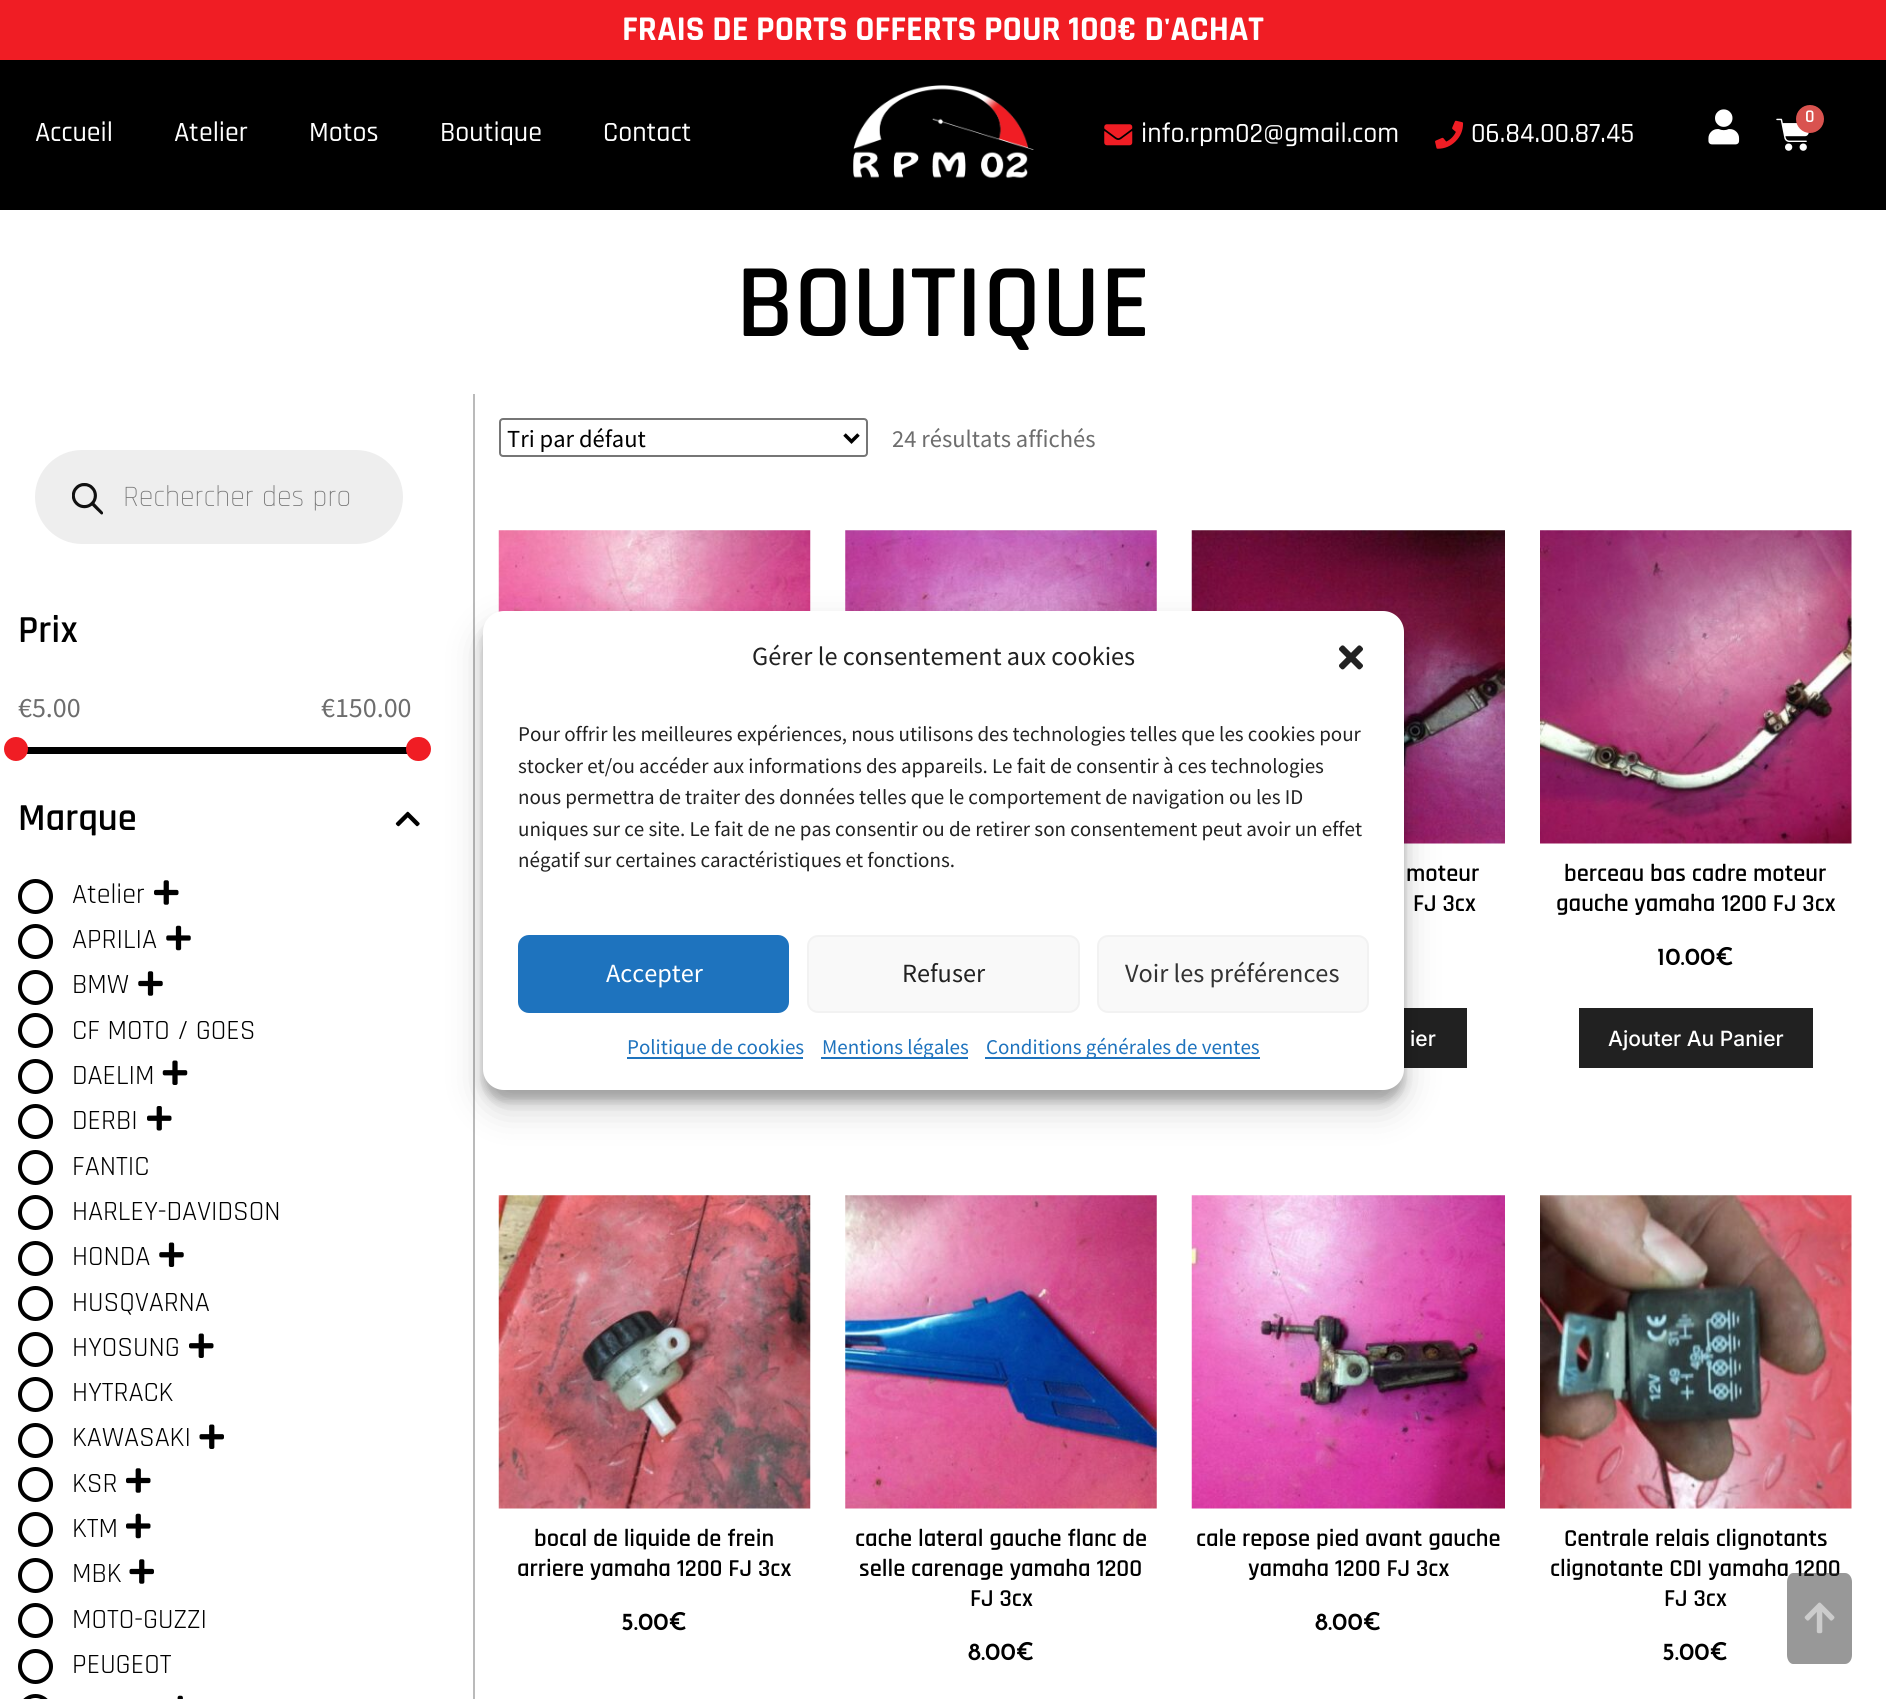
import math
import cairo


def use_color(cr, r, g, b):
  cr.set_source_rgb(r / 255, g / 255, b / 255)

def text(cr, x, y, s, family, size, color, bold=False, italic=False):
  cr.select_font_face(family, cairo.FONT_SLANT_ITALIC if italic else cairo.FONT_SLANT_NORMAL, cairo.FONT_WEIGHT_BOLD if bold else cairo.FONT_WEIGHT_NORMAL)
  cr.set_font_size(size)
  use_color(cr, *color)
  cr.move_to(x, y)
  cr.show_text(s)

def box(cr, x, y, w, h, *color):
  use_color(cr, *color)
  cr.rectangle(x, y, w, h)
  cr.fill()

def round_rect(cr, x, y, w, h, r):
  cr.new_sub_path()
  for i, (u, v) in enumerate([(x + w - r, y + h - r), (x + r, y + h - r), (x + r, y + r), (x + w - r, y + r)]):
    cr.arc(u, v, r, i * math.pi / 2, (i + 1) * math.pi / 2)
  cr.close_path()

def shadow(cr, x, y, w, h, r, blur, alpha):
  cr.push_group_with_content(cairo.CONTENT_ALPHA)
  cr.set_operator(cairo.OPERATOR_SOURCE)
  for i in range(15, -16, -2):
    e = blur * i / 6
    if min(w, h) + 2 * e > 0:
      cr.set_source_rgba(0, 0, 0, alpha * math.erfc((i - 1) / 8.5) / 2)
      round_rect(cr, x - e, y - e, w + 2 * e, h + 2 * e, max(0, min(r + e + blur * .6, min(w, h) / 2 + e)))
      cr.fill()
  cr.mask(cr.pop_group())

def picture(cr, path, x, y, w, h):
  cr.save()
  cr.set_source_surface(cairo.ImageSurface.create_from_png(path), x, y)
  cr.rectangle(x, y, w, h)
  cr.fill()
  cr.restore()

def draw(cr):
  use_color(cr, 255, 255, 255)
  cr.paint()
  box(cr, 0, 0, 1886, 60, 240, 29, 36)
  box(cr, 0, 60, 1886, 150, 0, 0, 0)
  picture(cr, "img_01.png", 853, 85, 181, 93)
  picture(cr, "img_02.png", 1708, 109, 32, 36)
  picture(cr, "img_03.png", 1776, 118, 33, 33)
  use_color(cr, 217, 83, 79)
  cr.arc(1810, 119, 14, 0, 2 * math.pi)
  cr.fill()
  picture(cr, "img_04.png", 1104, 124, 29, 22)
  picture(cr, "img_05.png", 1435, 120, 29, 29)
  box(cr, 473, 394, 2, 1305, 186, 186, 186)
  use_color(cr, 238, 238, 238)
  round_rect(cr, 35, 450, 368, 94, 47)
  cr.fill()
  picture(cr, "img_06.png", 72, 483, 31, 32)
  box(cr, 18, 747, 390, 7, 0, 0, 0)
  use_color(cr, 240, 29, 36)
  cr.arc(16, 749, 12, 0, 2 * math.pi)
  cr.fill()
  round_rect(cr, 406, 737, 25, 24, 12)
  cr.fill()
  picture(cr, "img_07.png", 395, 811, 25, 16)
  cr.arc(35.5, 896.5, 15.5, 0, 2 * math.pi)
  use_color(cr, 0, 0, 0)
  cr.set_line_width(4)
  cr.stroke()
  picture(cr, "img_08.png", 154, 880, 25, 25)
  cr.arc(35.5, 941.5, 15.5, 0, 2 * math.pi)
  cr.stroke()
  picture(cr, "img_09.png", 166, 925, 25, 26)
  cr.arc(35.5, 987.5, 15.5, 0, 2 * math.pi)
  cr.stroke()
  picture(cr, "img_10.png", 138, 971, 25, 25)
  cr.arc(35.5, 1030.5, 15.5, 0, 2 * math.pi)
  cr.stroke()
  cr.arc(35.5, 1076.5, 15.5, 0, 2 * math.pi)
  cr.stroke()
  picture(cr, "img_11.png", 162, 1060, 26, 25)
  cr.arc(35.5, 1121.5, 15.5, 0, 2 * math.pi)
  cr.stroke()
  picture(cr, "img_12.png", 147, 1106, 25, 25)
  cr.arc(35.5, 1167.5, 15.5, 0, 2 * math.pi)
  cr.stroke()
  cr.arc(35.5, 1212.5, 15.5, 0, 2 * math.pi)
  cr.stroke()
  cr.arc(35.5, 1258.5, 15.5, 0, 2 * math.pi)
  cr.stroke()
  picture(cr, "img_13.png", 159, 1242, 25, 25)
  cr.arc(35.5, 1303.5, 15.5, 0, 2 * math.pi)
  cr.stroke()
  cr.arc(35.5, 1349.5, 15.5, 0, 2 * math.pi)
  cr.stroke()
  picture(cr, "img_14.png", 189, 1333, 25, 25)
  cr.arc(35.5, 1394.5, 15.5, 0, 2 * math.pi)
  cr.stroke()
  cr.arc(35.5, 1440.5, 15.5, 0, 2 * math.pi)
  cr.stroke()
  picture(cr, "img_15.png", 199, 1424, 25, 25)
  cr.arc(35.5, 1484.5, 15.5, 0, 2 * math.pi)
  cr.stroke()
  picture(cr, "img_08.png", 126, 1468, 25, 25)
  cr.arc(35.5, 1529.5, 15.5, 0, 2 * math.pi)
  cr.stroke()
  picture(cr, "img_16.png", 126, 1513, 25, 26)
  cr.arc(35.5, 1575.5, 15.5, 0, 2 * math.pi)
  cr.stroke()
  picture(cr, "img_17.png", 129, 1559, 25, 25)
  cr.arc(35.5, 1620.5, 15.5, 0, 2 * math.pi)
  cr.stroke()
  cr.arc(35.5, 1666.5, 15.5, 0, 2 * math.pi)
  cr.stroke()
  round_rect(cr, 20, 1696, 31, 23, 15.5)
  cr.stroke()
  picture(cr, "img_18.png", 177, 1695, 6, 4)
  round_rect(cr, 500, 419, 367, 37, 3)
  use_color(cr, 118, 118, 118)
  cr.set_line_width(2)
  cr.stroke()
  cr.new_path()
  cr.move_to(844.5, 434.5)
  cr.line_to(851.5, 441.5)
  cr.line_to(858.5, 434.5)
  use_color(cr, 0, 0, 0)
  cr.set_line_width(3.5)
  cr.stroke()
  picture(cr, "img_19.png", 498, 530, 313, 82)
  picture(cr, "img_20.png", 845, 530, 312, 81)
  picture(cr, "img_21.png", 1191, 530, 314, 314)
  box(cr, 1404, 1008, 63, 60, 33, 33, 33)
  picture(cr, "img_22.png", 1540, 530, 312, 314)
  box(cr, 1579, 1008, 234, 60, 33, 33, 33)
  picture(cr, "img_23.png", 498, 1195, 313, 314)
  picture(cr, "img_24.png", 845, 1195, 312, 314)
  picture(cr, "img_25.png", 1191, 1195, 314, 314)
  picture(cr, "img_26.png", 1540, 1195, 312, 314)
  use_color(cr, 0, 0, 0)
  shadow(cr, 483, 621, 921, 480, 21, 5, 0.23)
  shadow(cr, 483, 628, 921, 480, 21, 17.5, 0.19)
  use_color(cr, 255, 255, 255)
  round_rect(cr, 483, 611, 921, 479, 21)
  cr.fill()
  picture(cr, "img_27.png", 1339, 645, 24, 25)
  use_color(cr, 30, 115, 190)
  round_rect(cr, 519, 936, 269, 76, 10)
  cr.fill_preserve()
  cr.set_line_width(2)
  cr.stroke()
  use_color(cr, 249, 249, 249)
  round_rect(cr, 808, 936, 271, 76, 10)
  cr.fill_preserve()
  use_color(cr, 242, 242, 242)
  cr.stroke()
  use_color(cr, 249, 249, 249)
  round_rect(cr, 1098, 936, 270, 76, 10)
  cr.fill_preserve()
  use_color(cr, 242, 242, 242)
  cr.stroke()
  box(cr, 627, 1057, 176, 2, 30, 115, 190)
  box(cr, 821, 1057, 147, 2, 30, 115, 190)
  box(cr, 985, 1057, 275, 2, 30, 115, 190)
  text(cr, 622, 40, "FRAIS DE PORTS OFFERTS POUR 100€ D'ACHAT", "Rajdhani", 35, (255, 255, 255), bold=True)
  text(cr, 35, 141, "Accueil", "Rajdhani Medium", 28, (255, 255, 255))
  text(cr, 174, 141, "Atelier", "Rajdhani Medium", 28, (255, 255, 255))
  text(cr, 309, 141, "Motos", "Rajdhani Medium", 28, (255, 255, 255))
  text(cr, 440, 141, "Boutique", "Rajdhani Medium", 28, (255, 255, 255))
  text(cr, 603, 141, "Contact", "Rajdhani Medium", 28, (255, 255, 255))
  text(cr, 1805, 122, "0", "Rajdhani SemiBold", 18, (255, 255, 255))
  text(cr, 1141, 142, "info.rpm02@gmail.com", "Rajdhani Medium", 28, (255, 255, 255))
  text(cr, 1471, 142, "06.84.00.87.45", "Rajdhani Medium", 28, (255, 255, 255))
  text(cr, 736, 336, "BOUTIQUE", "Rajdhani SemiBold", 105, (0, 0, 0))
  text(cr, 123, 506, "Rechercher des pro", "Rajdhani Light", 29.75, (119, 119, 119))
  text(cr, 18, 642, "Prix", "Rajdhani SemiBold", 38.5, (0, 0, 0))
  text(cr, 18, 717, "€5.00", "Source Sans Pro", 28, (109, 109, 109))
  text(cr, 321, 717, "€150.00", "Source Sans Pro", 28, (109, 109, 109))
  text(cr, 18, 830, "Marque", "Rajdhani SemiBold", 38.5, (0, 0, 0))
  text(cr, 72, 903, "Atelier", "Rajdhani", 28, (0, 0, 0))
  text(cr, 72, 948, "APRILIA", "Rajdhani", 28, (0, 0, 0))
  text(cr, 72, 993, "BMW", "Rajdhani", 28, (0, 0, 0))
  text(cr, 72, 1039, "CF MOTO / GOES", "Rajdhani", 28, (0, 0, 0))
  text(cr, 72, 1084, "DAELIM", "Rajdhani", 28, (0, 0, 0))
  text(cr, 72, 1129, "DERBI", "Rajdhani", 28, (0, 0, 0))
  text(cr, 72, 1175, "FANTIC", "Rajdhani", 28, (0, 0, 0))
  text(cr, 72, 1220, "HARLEY-DAVIDSON", "Rajdhani", 28, (0, 0, 0))
  text(cr, 72, 1265, "HONDA", "Rajdhani", 28, (0, 0, 0))
  text(cr, 72, 1311, "HUSQVARNA", "Rajdhani", 28, (0, 0, 0))
  text(cr, 72, 1356, "HYOSUNG", "Rajdhani", 28, (0, 0, 0))
  text(cr, 72, 1401, "HYTRACK", "Rajdhani", 28, (0, 0, 0))
  text(cr, 72, 1446, "KAWASAKI", "Rajdhani", 28, (0, 0, 0))
  text(cr, 72, 1492, "KSR", "Rajdhani", 28, (0, 0, 0))
  text(cr, 72, 1537, "KTM", "Rajdhani", 28, (0, 0, 0))
  text(cr, 72, 1582, "MBK", "Rajdhani", 28, (0, 0, 0))
  text(cr, 72, 1628, "MOTO-GUZZI", "Rajdhani", 28, (0, 0, 0))
  text(cr, 72, 1673, "PEUGEOT", "Rajdhani", 28, (0, 0, 0))
  text(cr, 507, 447, "Tri par défaut", "Source Sans Pro", 24.5, (0, 0, 0))
  text(cr, 892, 447, "24 résultats affichés", "Source Sans Pro", 24.5, (109, 109, 109))
  text(cr, 1406, 881, "moteur", "Rajdhani SemiBold", 24.5, (0, 0, 0))
  text(cr, 1413, 911, "FJ 3cx", "Rajdhani SemiBold", 24.5, (0, 0, 0))
  text(cr, 1410, 1046, "ier", "Inter Medium", 21, (255, 255, 255))
  text(cr, 1564, 881, "berceau bas cadre moteur", "Rajdhani SemiBold", 24.5, (0, 0, 0))
  text(cr, 1556, 911, "gauche yamaha 1200 FJ 3cx", "Rajdhani SemiBold", 24.5, (0, 0, 0))
  text(cr, 1657, 965, "10.00€", "Josefin Sans SemiBold", 24.5, (0, 0, 0))
  text(cr, 1608, 1046, "Ajouter Au Panier", "Inter Medium", 21, (255, 255, 255))
  text(cr, 534, 1546, "bocal de liquide de frein", "Rajdhani SemiBold", 24.5, (0, 0, 0))
  text(cr, 517, 1576, "arriere yamaha 1200 FJ 3cx", "Rajdhani SemiBold", 24.5, (0, 0, 0))
  text(cr, 621, 1630, "5.00€", "Josefin Sans SemiBold", 24.5, (0, 0, 0))
  text(cr, 855, 1546, "cache lateral gauche flanc de", "Rajdhani SemiBold", 24.5, (0, 0, 0))
  text(cr, 859, 1576, "selle carenage yamaha 1200", "Rajdhani SemiBold", 24.5, (0, 0, 0))
  text(cr, 970, 1606, "FJ 3cx", "Rajdhani SemiBold", 24.5, (0, 0, 0))
  text(cr, 968, 1660, "8.00€", "Josefin Sans SemiBold", 24.5, (0, 0, 0))
  text(cr, 1196, 1546, "cale repose pied avant gauche", "Rajdhani SemiBold", 24.5, (0, 0, 0))
  text(cr, 1248, 1576, "yamaha 1200 FJ 3cx", "Rajdhani SemiBold", 24.5, (0, 0, 0))
  text(cr, 1315, 1630, "8.00€", "Josefin Sans SemiBold", 24.5, (0, 0, 0))
  text(cr, 1564, 1546, "Centrale relais clignotants", "Rajdhani SemiBold", 24.5, (0, 0, 0))
  text(cr, 1550, 1576, "clignotante CDI yamaha 1200", "Rajdhani SemiBold", 24.5, (0, 0, 0))
  text(cr, 1664, 1606, "FJ 3cx", "Rajdhani SemiBold", 24.5, (0, 0, 0))
  text(cr, 1662, 1660, "5.00€", "Josefin Sans SemiBold", 24.5, (0, 0, 0))
  text(cr, 752, 665, "Gérer le consentement aux cookies", "Source Sans Pro", 26.25, (34, 34, 34))
  text(cr, 518, 741, "Pour offrir les meilleures expériences, nous utilisons des technologies telles que les cookies pour", "Source Sans Pro", 21, (34, 34, 34))
  text(cr, 518, 773, "stocker et/ou accéder aux informations des appareils. Le fait de consentir à ces technologies", "Source Sans Pro", 21, (34, 34, 34))
  text(cr, 518, 804, "nous permettra de traiter des données telles que le comportement de navigation ou les ID", "Source Sans Pro", 21, (34, 34, 34))
  text(cr, 518, 836, "uniques sur ce site. Le fait de ne pas consentir ou de retirer son consentement peut avoir un effet", "Source Sans Pro", 21, (34, 34, 34))
  text(cr, 518, 867, "négatif sur certaines caractéristiques et fonctions.", "Source Sans Pro", 21, (34, 34, 34))
  text(cr, 606, 982, "Accepter", "Source Sans Pro", 26.25, (255, 255, 255))
  text(cr, 902, 982, "Refuser", "Source Sans Pro", 26.25, (34, 34, 34))
  text(cr, 1125, 982, "Voir les préférences", "Source Sans Pro", 26.25, (51, 51, 51))
  text(cr, 627, 1054, "Politique de cookies", "Source Sans Pro", 21, (30, 115, 190))
  text(cr, 822, 1054, "Mentions légales", "Source Sans Pro", 21, (30, 115, 190))
  text(cr, 986, 1054, "Conditions générales de ventes", "Source Sans Pro", 21, (30, 115, 190))
  cr.set_source_rgba(0.2, 0.2, 0.2, 0.5)
  cr.new_path()
  cr.move_to(1793, 1573)
  cr.line_to(1845, 1573)
  cr.curve_to(1849, 1573, 1852, 1577, 1852, 1582)
  cr.line_to(1852, 1655)
  cr.curve_to(1852, 1660, 1849, 1664, 1845, 1664)
  cr.line_to(1793, 1664)
  cr.curve_to(1790, 1664, 1787, 1660, 1787, 1655)
  cr.line_to(1787, 1582)
  cr.curve_to(1787, 1577, 1790, 1573, 1793, 1573)
  cr.close_path()
  cr.fill()
  picture(cr, "img_28.png", 1804, 1602, 31, 32)


surface = cairo.ImageSurface(cairo.FORMAT_RGB24, 1886, 1699)
cr = cairo.Context(surface)
options = cairo.FontOptions()
options.set_hint_metrics(cairo.HINT_METRICS_OFF)
options.set_hint_style(cairo.HINT_STYLE_NONE)
cr.set_font_options(options)
cr.set_miter_limit(4)
draw(cr)
surface.write_to_png("out.png")
